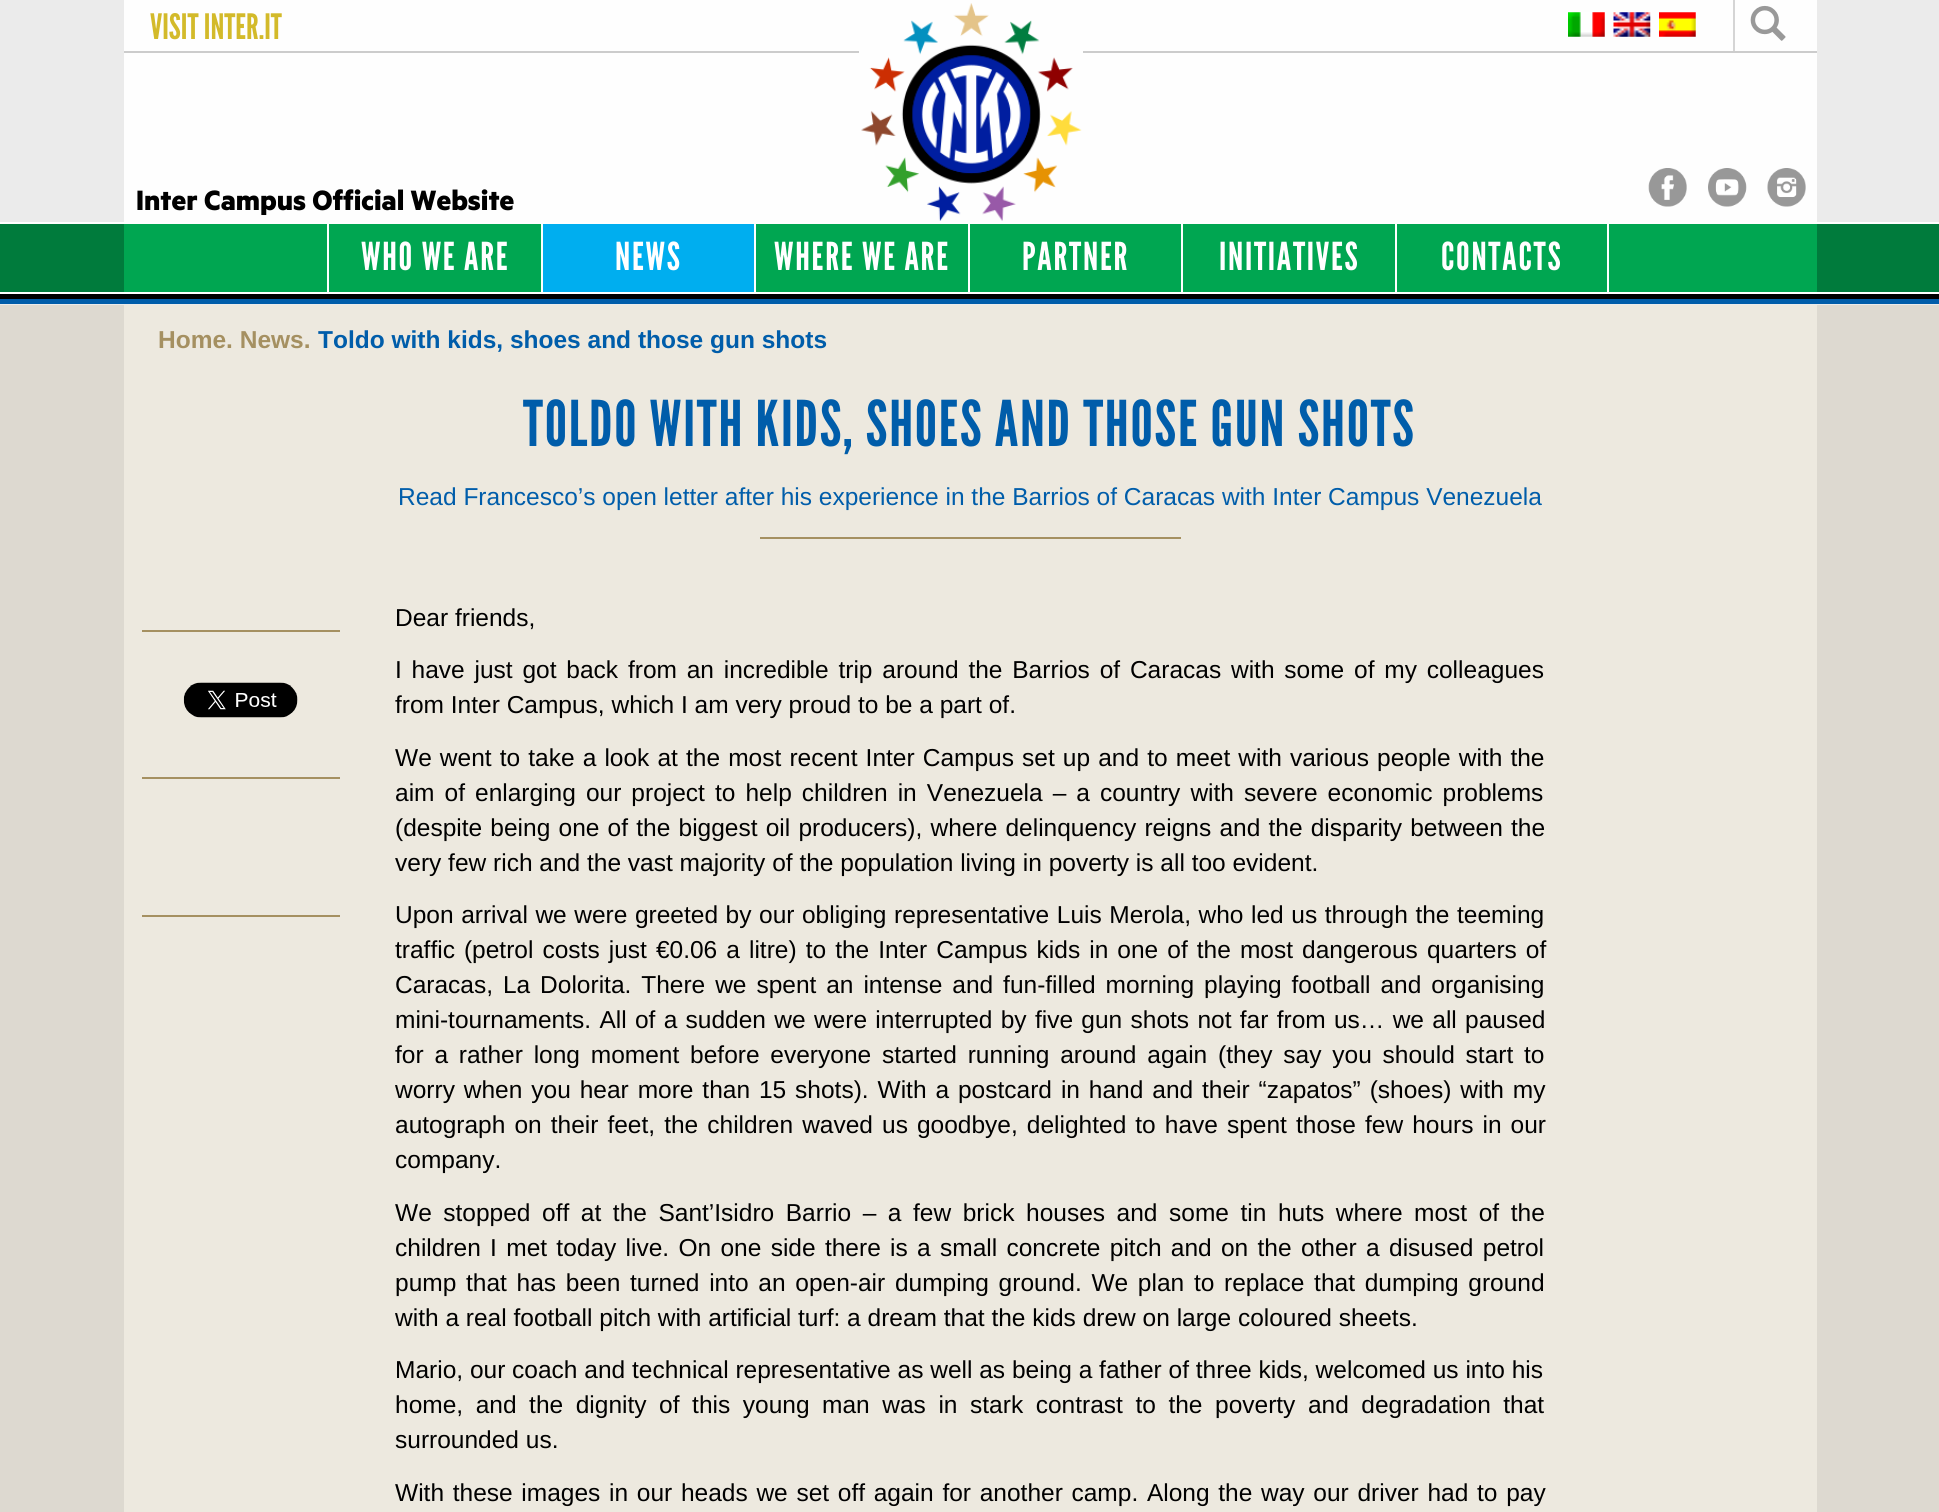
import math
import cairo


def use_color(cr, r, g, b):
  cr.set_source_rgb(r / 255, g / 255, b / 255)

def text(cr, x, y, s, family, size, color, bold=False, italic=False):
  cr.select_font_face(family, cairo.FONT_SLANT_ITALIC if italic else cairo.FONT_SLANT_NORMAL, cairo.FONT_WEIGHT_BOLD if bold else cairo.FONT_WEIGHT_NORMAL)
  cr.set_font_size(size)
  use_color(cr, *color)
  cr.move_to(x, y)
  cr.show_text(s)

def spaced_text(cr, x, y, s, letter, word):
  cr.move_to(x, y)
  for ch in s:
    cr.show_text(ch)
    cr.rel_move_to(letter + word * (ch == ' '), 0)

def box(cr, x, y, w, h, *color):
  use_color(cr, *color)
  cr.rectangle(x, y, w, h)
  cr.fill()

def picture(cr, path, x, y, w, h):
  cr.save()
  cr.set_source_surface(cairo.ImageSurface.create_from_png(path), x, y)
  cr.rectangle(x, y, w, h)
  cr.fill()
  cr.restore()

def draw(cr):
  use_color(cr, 221, 217, 208)
  cr.paint()
  box(cr, 0, 0, 1939, 305, 235, 235, 235)
  box(cr, 124, 0, 1693, 222, 254, 254, 254)
  box(cr, 124, 51, 1693, 2, 204, 204, 204)
  box(cr, 859, 51, 224, 2, 254, 254, 254)
  picture(cr, "img_01.png", 861, 3, 221, 218)
  picture(cr, "img_02.png", 1568, 12, 37, 25)
  picture(cr, "img_03.png", 1613, 12, 38, 25)
  picture(cr, "img_04.png", 1659, 12, 37, 25)
  box(cr, 1733, 0, 2, 51, 213, 213, 213)
  picture(cr, "img_05.png", 1750, 5, 36, 36)
  picture(cr, "img_06.png", 1648, 168, 39, 39)
  picture(cr, "img_07.png", 1708, 168, 39, 39)
  picture(cr, "img_08.png", 1767, 168, 39, 39)
  box(cr, 0, 224, 1939, 68, 0, 123, 60)
  box(cr, 0, 222, 1939, 2, 255, 255, 255)
  box(cr, 0, 292, 1939, 2, 255, 255, 255)
  box(cr, 124, 224, 1693, 68, 0, 166, 81)
  box(cr, 327, 224, 2, 68, 255, 255, 255)
  box(cr, 543, 224, 211, 68, 0, 174, 239)
  box(cr, 541, 224, 2, 68, 255, 255, 255)
  box(cr, 754, 224, 2, 68, 255, 255, 255)
  box(cr, 968, 224, 2, 68, 255, 255, 255)
  box(cr, 1181, 224, 2, 68, 255, 255, 255)
  box(cr, 1607, 224, 2, 68, 255, 255, 255)
  box(cr, 1395, 224, 2, 68, 255, 255, 255)
  box(cr, 0, 294, 1939, 5, 0, 0, 0)
  box(cr, 0, 299, 1939, 5, 0, 93, 170)
  box(cr, 124, 305, 1693, 1207, 237, 233, 223)
  box(cr, 142, 630, 198, 2, 165, 144, 97)
  picture(cr, "img_09.png", 183, 682, 115, 36)
  box(cr, 760, 537, 421, 2, 165, 144, 97)
  box(cr, 142, 777, 198, 2, 165, 144, 97)
  box(cr, 142, 915, 198, 2, 165, 144, 97)
  text(cr, 150, 39, "VISIT INTER.IT", "League Gothic", 35, (211, 186, 42))
  text(cr, 136, 210, "Inter Campus Official Website", "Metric", 31.5, (0, 0, 0), bold=True)
  cr.select_font_face("League Gothic")
  cr.set_font_size(38.5)
  use_color(cr, 255, 255, 255)
  spaced_text(cr, 361, 270, "WHO WE ARE", 1.75, 0)
  spaced_text(cr, 615, 270, "NEWS", 1.75, 0)
  spaced_text(cr, 774, 270, "WHERE WE ARE", 1.75, 0)
  spaced_text(cr, 1022, 270, "PARTNER", 1.75, 0)
  spaced_text(cr, 1219, 270, "INITIATIVES", 1.75, 0)
  spaced_text(cr, 1441, 270, "CONTACTS", 1.75, 0)
  text(cr, 158, 348, "Home. News.", "Liberation Sans", 24.5, (165, 144, 97), bold=True)
  text(cr, 318, 348, "Toldo with kids, shoes and those gun shots", "Liberation Sans", 24.5, (0, 93, 170), bold=True)
  cr.select_font_face("League Gothic")
  cr.set_font_size(63)
  spaced_text(cr, 523, 446, "TOLDO WITH KIDS, SHOES AND THOSE GUN SHOTS", 1.75, 0)
  text(cr, 398, 505, "Read Francesco’s open letter after his experience in the Barrios of Caracas with Inter Campus Venezuela", "Liberation Sans", 24.5, (0, 93, 170))
  text(cr, 395, 626, "Dear friends,", "Liberation Sans", 24.5, (0, 0, 0))
  spaced_text(cr, 395, 678, "I have just got back from an incredible trip around the Barrios of Caracas with some of my colleagues", 0, 3)
  text(cr, 395, 713, "from Inter Campus, which I am very proud to be a part of.", "Liberation Sans", 24.5, (0, 0, 0))
  spaced_text(cr, 395, 766, "We went to take a look at the most recent Inter Campus set up and to meet with various people with the", 0, 1.3)
  spaced_text(cr, 395, 801, "aim of enlarging our project to help children in Venezuela – a country with severe economic problems", 0, 3.25)
  spaced_text(cr, 395, 836, "(despite being one of the biggest oil producers), where delinquency reigns and the disparity between the", 0, 1.4)
  text(cr, 395, 871, "very few rich and the vast majority of the population living in poverty is all too evident.", "Liberation Sans", 24.5, (0, 0, 0))
  spaced_text(cr, 395, 923, "Upon arrival we were greeted by our obliging representative Luis Merola, who led us through the teeming", 0, 0.75)
  spaced_text(cr, 395, 958, "traffic (petrol costs just €0.06 a litre) to the Inter Campus kids in one of the most dangerous quarters of", 0, 2.25)
  spaced_text(cr, 395, 993, "Caracas, La Dolorita. There we spent an intense and fun-filled morning playing football and organising", 0, 3.1)
  spaced_text(cr, 395, 1028, "mini-tournaments. All of a sudden we were interrupted by five gun shots not far from us… we all paused", 0, 1.5)
  spaced_text(cr, 395, 1063, "for a rather long moment before everyone started running around again (they say you should start to", 0, 4)
  spaced_text(cr, 395, 1098, "worry when you hear more than 15 shots). With a postcard in hand and their “zapatos” (shoes) with my", 0, 2.1)
  spaced_text(cr, 395, 1133, "autograph on their feet, the children waved us goodbye, delighted to have spent those few hours in our", 0, 2.25)
  text(cr, 395, 1168, "company.", "Liberation Sans", 24.5, (0, 0, 0))
  spaced_text(cr, 395, 1221, "We stopped off at the Sant’Isidro Barrio – a few brick houses and some tin huts where most of the", 0, 4.75)
  spaced_text(cr, 395, 1256, "children I met today live. On one side there is a small concrete pitch and on the other a disused petrol", 0, 2.5)
  spaced_text(cr, 395, 1291, "pump that has been turned into an open-air dumping ground. We plan to replace that dumping ground", 0, 2.9)
  text(cr, 395, 1326, "with a real football pitch with artificial turf: a dream that the kids drew on large coloured sheets.", "Liberation Sans", 24.5, (0, 0, 0))
  text(cr, 395, 1378, "Mario, our coach and technical representative as well as being a father of three kids, welcomed us into his", "Liberation Sans", 24.5, (0, 0, 0))
  spaced_text(cr, 395, 1413, "home, and the dignity of this young man was in stark contrast to the poverty and degradation that", 0, 5.75)
  text(cr, 395, 1448, "surrounded us.", "Liberation Sans", 24.5, (0, 0, 0))
  spaced_text(cr, 395, 1501, "With these images in our heads we set off again for another camp. Along the way our driver had to pay", 0, 1.9)


surface = cairo.ImageSurface(cairo.FORMAT_RGB24, 1939, 1512)
cr = cairo.Context(surface)
options = cairo.FontOptions()
options.set_hint_metrics(cairo.HINT_METRICS_OFF)
options.set_hint_style(cairo.HINT_STYLE_NONE)
cr.set_font_options(options)
cr.set_miter_limit(4)
draw(cr)
surface.write_to_png("out.png")
